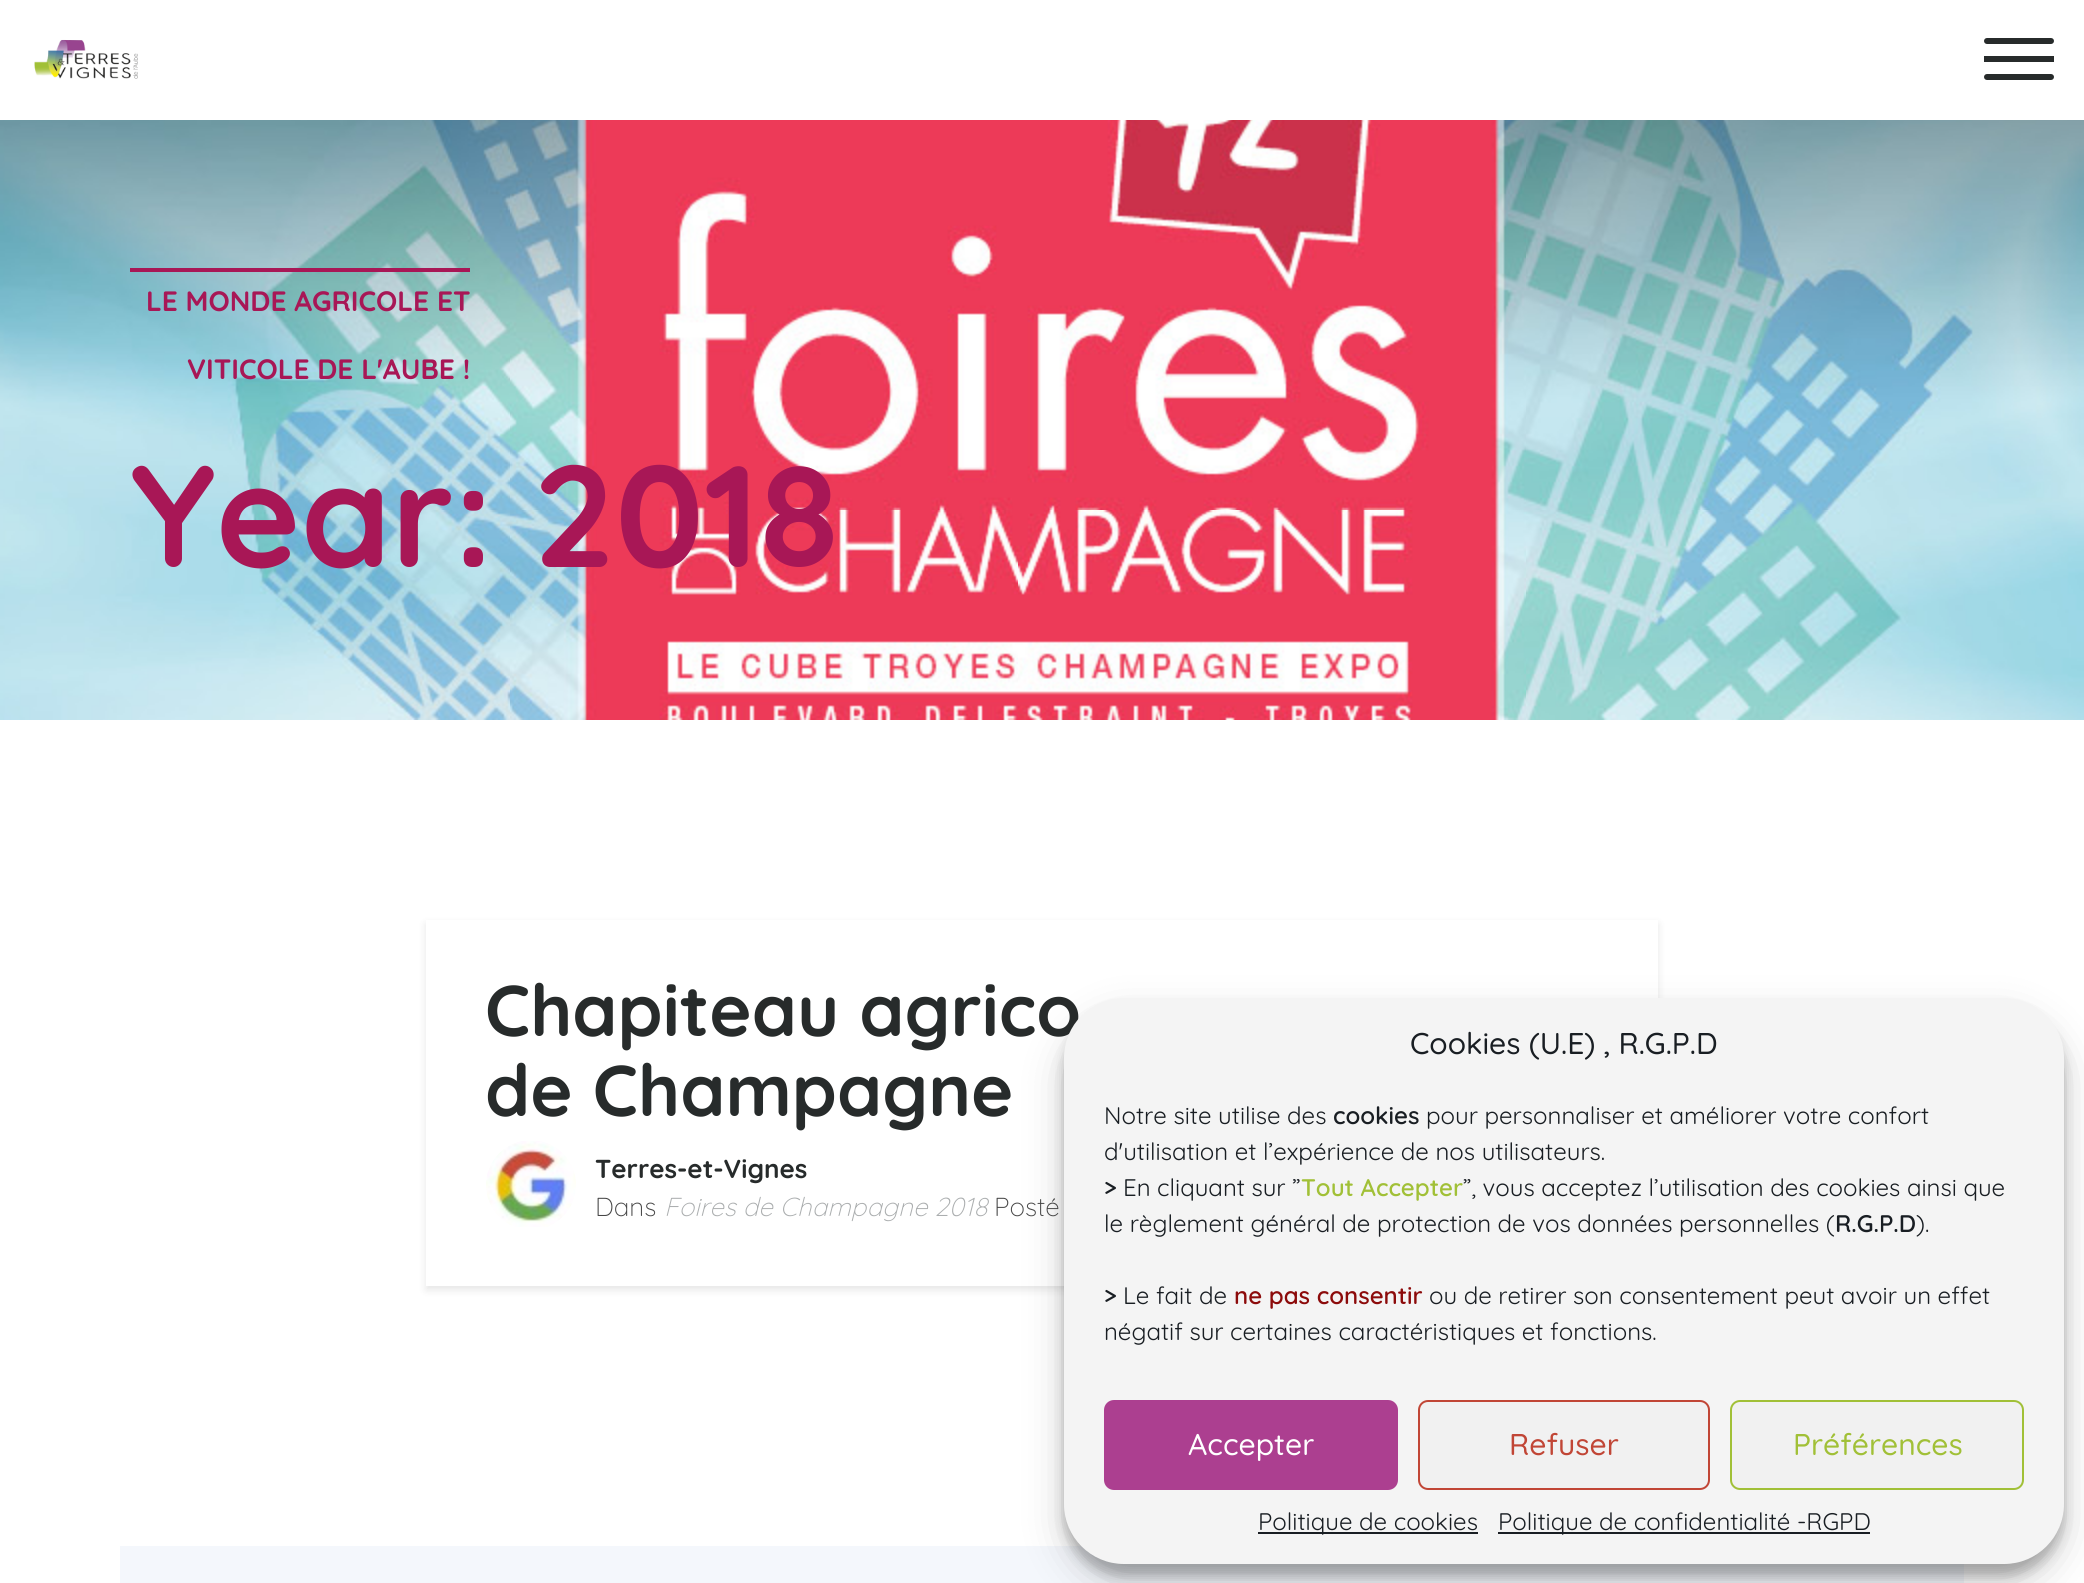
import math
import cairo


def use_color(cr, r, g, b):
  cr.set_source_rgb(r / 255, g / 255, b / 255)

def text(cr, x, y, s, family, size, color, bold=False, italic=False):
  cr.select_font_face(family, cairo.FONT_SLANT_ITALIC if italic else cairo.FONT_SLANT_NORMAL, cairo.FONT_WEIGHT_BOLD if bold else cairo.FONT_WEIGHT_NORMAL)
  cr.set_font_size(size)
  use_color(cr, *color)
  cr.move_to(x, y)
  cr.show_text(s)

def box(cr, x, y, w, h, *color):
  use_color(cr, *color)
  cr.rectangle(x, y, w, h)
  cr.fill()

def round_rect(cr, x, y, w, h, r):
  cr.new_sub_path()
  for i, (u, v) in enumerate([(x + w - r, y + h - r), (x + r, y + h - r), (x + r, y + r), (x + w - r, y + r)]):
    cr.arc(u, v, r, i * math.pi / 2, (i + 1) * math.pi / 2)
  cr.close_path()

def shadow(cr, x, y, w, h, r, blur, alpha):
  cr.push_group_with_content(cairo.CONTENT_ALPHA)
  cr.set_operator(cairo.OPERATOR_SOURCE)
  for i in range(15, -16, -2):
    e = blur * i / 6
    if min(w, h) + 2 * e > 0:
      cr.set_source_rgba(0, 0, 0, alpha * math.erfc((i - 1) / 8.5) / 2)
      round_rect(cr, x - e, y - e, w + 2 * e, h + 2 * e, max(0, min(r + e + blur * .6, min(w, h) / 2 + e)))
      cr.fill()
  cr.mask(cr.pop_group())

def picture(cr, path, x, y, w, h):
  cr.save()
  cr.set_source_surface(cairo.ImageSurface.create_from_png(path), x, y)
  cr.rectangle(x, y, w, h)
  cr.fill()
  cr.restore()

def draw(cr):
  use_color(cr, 255, 255, 255)
  cr.paint()
  picture(cr, "img_01.png", 34, 39, 104, 40)
  box(cr, 1984, 56, 70, 6, 39, 43, 43)
  round_rect(cr, 1984, 38, 70, 6, 3)
  cr.fill()
  round_rect(cr, 1984, 74, 70, 6, 3)
  cr.fill()
  picture(cr, "img_02.png", 0, 120, 2084, 600)
  box(cr, 130, 268, 340, 4, 168, 23, 86)
  cr.save()
  cr.set_fill_rule(cairo.FILL_RULE_EVEN_ODD)
  cr.new_path()
  cr.move_to(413, 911)
  cr.line_to(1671, 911)
  cr.line_to(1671, 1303)
  cr.line_to(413, 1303)
  cr.close_path()
  cr.move_to(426, 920)
  cr.line_to(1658, 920)
  cr.line_to(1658, 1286)
  cr.line_to(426, 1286)
  cr.close_path()
  cr.clip()
  use_color(cr, 0, 0, 0)
  shadow(cr, 426, 924, 1232, 366, 0, 4, 0.1)
  cr.restore()
  picture(cr, "img_03.png", 486, 1141, 90, 86)
  box(cr, 120, 1546, 1844, 37, 244, 247, 252)
  use_color(cr, 0, 0, 0)
  shadow(cr, 1064, 1010, 1000, 566, 60, 6, 0.23)
  shadow(cr, 1064, 1018, 1000, 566, 60, 20, 0.19)
  text(cr, 146, 311, "LE MONDE AGRICOLE ET", "Quicksand", 28, (168, 23, 86), bold=True)
  text(cr, 187, 379, "VITICOLE DE L'AUBE !", "Quicksand", 28, (168, 23, 86), bold=True)
  text(cr, 130, 567, "Year: 2018", "Quicksand", 144, (168, 23, 86), bold=True)
  text(cr, 485, 1036, "Chapiteau agrico", "Quicksand", 72, (39, 43, 43), bold=True)
  text(cr, 485, 1116, "de Champagne", "Quicksand", 72, (39, 43, 43), bold=True)
  text(cr, 595, 1178, "Terres-et-Vignes", "Quicksand", 26, (39, 43, 43), bold=True)
  text(cr, 595, 1216, "Dans", "Quicksand Light", 26, (71, 71, 71))
  text(cr, 664, 1216, "Foires de Champagne 2018", "Quicksand Light", 26, (171, 174, 175), italic=True)
  text(cr, 994, 1216, "Posté", "Quicksand Light", 26, (71, 71, 71))
  use_color(cr, 244, 244, 244)
  round_rect(cr, 1064, 998, 1000, 566, 60)
  cr.fill()
  text(cr, 1410, 1054, "Cookies (U.E) , R.G.P.D", "Quicksand Medium", 30, (25, 30, 35))
  text(cr, 1104, 1124, "Notre site utilise des", "Quicksand", 24, (25, 30, 35))
  text(cr, 1333, 1124, "cookies", "Quicksand SemiBold", 24, (25, 30, 35))
  text(cr, 1426, 1124, "pour personnaliser et améliorer votre confort", "Quicksand", 24, (25, 30, 35))
  text(cr, 1104, 1160, "d'utilisation et l’expérience de nos utilisateurs.", "Quicksand", 24, (25, 30, 35))
  text(cr, 1104, 1196, ">", "Quicksand SemiBold", 24, (25, 30, 35))
  text(cr, 1123, 1196, "En cliquant sur ”", "Quicksand", 24, (25, 30, 35))
  text(cr, 1301, 1196, "Tout Accepter", "Quicksand SemiBold", 24, (161, 192, 55))
  text(cr, 1463, 1196, "”, vous acceptez l’utilisation des cookies ainsi que", "Quicksand", 24, (25, 30, 35))
  text(cr, 1104, 1232, "le règlement général de protection de vos données personnelles (", "Quicksand", 24, (25, 30, 35))
  text(cr, 1835, 1232, "R.G.P.D", "Quicksand SemiBold", 24, (25, 30, 35))
  text(cr, 1916, 1232, ").", "Quicksand", 24, (25, 30, 35))
  text(cr, 1104, 1304, ">", "Quicksand SemiBold", 24, (25, 30, 35))
  text(cr, 1123, 1304, "Le fait de", "Quicksand", 24, (25, 30, 35))
  text(cr, 1234, 1304, "ne pas consentir", "Quicksand SemiBold", 24, (140, 11, 11))
  text(cr, 1429, 1304, "ou de retirer son consentement peut avoir un effet", "Quicksand", 24, (25, 30, 35))
  text(cr, 1104, 1340, "négatif sur certaines caractéristiques et fonctions.", "Quicksand", 24, (25, 30, 35))
  use_color(cr, 172, 63, 144)
  round_rect(cr, 1105, 1401, 292, 88, 9)
  cr.fill_preserve()
  cr.stroke()
  text(cr, 1188, 1455, "Accepter", "Quicksand Medium", 30, (255, 255, 255))
  use_color(cr, 241, 241, 241)
  round_rect(cr, 1419, 1401, 290, 88, 9)
  cr.fill_preserve()
  use_color(cr, 193, 70, 54)
  cr.stroke()
  text(cr, 1509, 1455, "Refuser", "Quicksand Medium", 30, (193, 70, 54))
  use_color(cr, 241, 241, 241)
  round_rect(cr, 1731, 1401, 292, 88, 9)
  cr.fill_preserve()
  use_color(cr, 161, 192, 55)
  cr.stroke()
  text(cr, 1793, 1455, "Préférences", "Quicksand Medium", 30, (161, 192, 55))
  box(cr, 1258, 1532, 220, 2, 25, 30, 35)
  text(cr, 1258, 1530, "Politique de cookies", "Quicksand", 24, (25, 30, 35))
  box(cr, 1498, 1532, 372, 2, 25, 30, 35)
  text(cr, 1498, 1530, "Politique de confidentialité -RGPD", "Quicksand", 24, (25, 30, 35))


surface = cairo.ImageSurface(cairo.FORMAT_RGB24, 2084, 1583)
cr = cairo.Context(surface)
options = cairo.FontOptions()
options.set_hint_metrics(cairo.HINT_METRICS_OFF)
options.set_hint_style(cairo.HINT_STYLE_NONE)
cr.set_font_options(options)
cr.set_miter_limit(4)
draw(cr)
surface.write_to_png("out.png")
